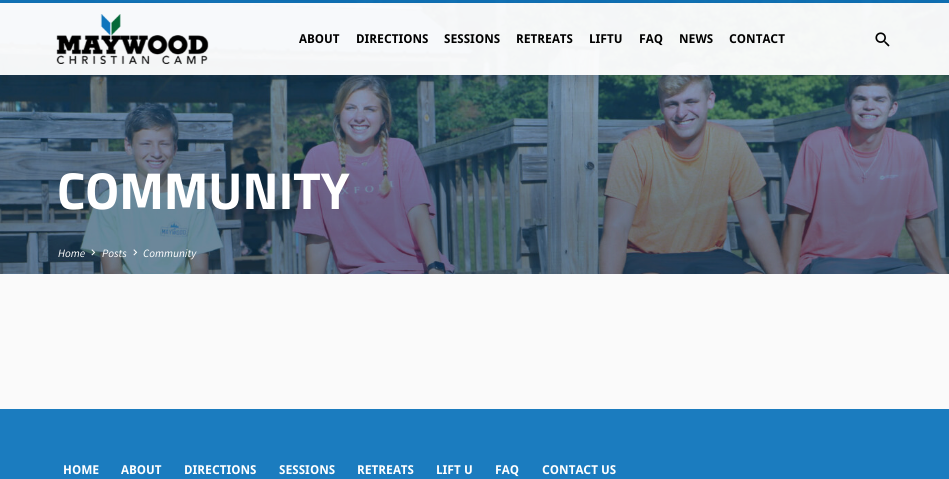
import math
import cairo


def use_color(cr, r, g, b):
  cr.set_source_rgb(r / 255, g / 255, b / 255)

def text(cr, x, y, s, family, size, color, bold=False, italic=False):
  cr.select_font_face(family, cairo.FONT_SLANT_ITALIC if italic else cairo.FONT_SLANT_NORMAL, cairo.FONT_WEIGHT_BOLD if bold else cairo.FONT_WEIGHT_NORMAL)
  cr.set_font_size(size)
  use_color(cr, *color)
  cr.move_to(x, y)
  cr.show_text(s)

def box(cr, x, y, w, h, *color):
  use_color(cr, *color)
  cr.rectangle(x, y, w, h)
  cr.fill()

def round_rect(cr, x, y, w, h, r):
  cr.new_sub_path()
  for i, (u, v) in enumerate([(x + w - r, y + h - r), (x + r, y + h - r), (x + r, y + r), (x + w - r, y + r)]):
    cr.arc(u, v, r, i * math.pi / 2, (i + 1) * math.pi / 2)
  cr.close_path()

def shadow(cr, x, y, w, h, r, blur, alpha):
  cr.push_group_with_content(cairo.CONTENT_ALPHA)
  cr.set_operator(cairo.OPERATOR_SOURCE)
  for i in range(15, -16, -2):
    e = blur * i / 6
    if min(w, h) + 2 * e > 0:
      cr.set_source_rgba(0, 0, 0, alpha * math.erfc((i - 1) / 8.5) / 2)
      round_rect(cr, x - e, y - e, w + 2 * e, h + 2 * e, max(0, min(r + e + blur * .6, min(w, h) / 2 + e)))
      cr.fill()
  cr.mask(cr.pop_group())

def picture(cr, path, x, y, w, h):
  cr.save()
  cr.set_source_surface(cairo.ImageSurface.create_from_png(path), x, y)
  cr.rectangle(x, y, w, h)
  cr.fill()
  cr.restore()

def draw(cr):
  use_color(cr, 250, 250, 250)
  cr.paint()
  box(cr, 0, 0, 949, 274, 22, 102, 157)
  picture(cr, "img_03.png", 0, 0, 949, 274)
  cr.set_source_rgba(0.059, 0.459, 0.737, 0.95)
  cr.rectangle(0, 0, 949, 3)
  cr.fill()
  cr.set_source_rgba(1, 1, 1, 0.95)
  cr.rectangle(0, 3, 949, 72)
  cr.fill()
  cr.save()
  cr.set_fill_rule(cairo.FILL_RULE_EVEN_ODD)
  cr.new_path()
  cr.move_to(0, 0)
  cr.line_to(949, 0)
  cr.line_to(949, 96)
  cr.line_to(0, 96)
  cr.close_path()
  cr.move_to(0, 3)
  cr.line_to(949, 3)
  cr.line_to(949, 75)
  cr.line_to(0, 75)
  cr.close_path()
  cr.clip()
  use_color(cr, 0, 0, 0)
  shadow(cr, 0, 5, 949, 72, 0, 6, 0.14)
  cr.restore()
  picture(cr, "img_01.png", 56, 14, 153, 50)
  picture(cr, "img_02.png", 875, 32, 15, 15)
  gradient = cairo.LinearGradient(475, 0, 475, 274)
  gradient.add_color_stop_rgba(0, 0, 0, 0, 0)
  gradient.add_color_stop_rgba(0.36, 0, 0, 0, 0)
  gradient.add_color_stop_rgba(0.76, 0, 0, 0, 0.18)
  gradient.add_color_stop_rgba(1, 0, 0, 0, 0.18)
  cr.set_source(gradient)
  cr.rectangle(0, 112, 949, 162)
  cr.fill()
  picture(cr, "img_04.png", 91, 249, 5, 7)
  picture(cr, "img_05.png", 133, 249, 5, 7)
  box(cr, 0, 409, 949, 70, 27, 124, 191)
  text(cr, 299, 43, "ABOUT", "Droid Sans", 12.25, (0, 0, 0), bold=True)
  text(cr, 356, 43, "DIRECTIONS", "Droid Sans", 12.25, (0, 0, 0), bold=True)
  text(cr, 444, 43, "SESSIONS", "Droid Sans", 12.25, (0, 0, 0), bold=True)
  text(cr, 516, 43, "RETREATS", "Droid Sans", 12.25, (0, 0, 0), bold=True)
  text(cr, 589, 43, "LIFTU", "Droid Sans", 12.25, (0, 0, 0), bold=True)
  text(cr, 639, 43, "FAQ", "Droid Sans", 12.25, (0, 0, 0), bold=True)
  text(cr, 679, 43, "NEWS", "Droid Sans", 12.25, (0, 0, 0), bold=True)
  text(cr, 729, 43, "CONTACT", "Droid Sans", 12.25, (0, 0, 0), bold=True)
  text(cr, 57, 209, "COMMUNITY", "Titillium Web", 52, (255, 255, 255), bold=True)
  text(cr, 58, 257, "Home", "Source Sans Pro", 11.25, (255, 255, 255), italic=True)
  text(cr, 102, 257, "Posts", "Source Sans Pro", 11.25, (255, 255, 255), italic=True)
  text(cr, 143, 257, "Community", "Source Sans Pro", 11.25, (255, 255, 255), italic=True)
  text(cr, 63, 474, "HOME", "Droid Sans", 12.25, (255, 255, 255), bold=True)
  text(cr, 121, 474, "ABOUT", "Droid Sans", 12.25, (255, 255, 255), bold=True)
  text(cr, 184, 474, "DIRECTIONS", "Droid Sans", 12.25, (255, 255, 255), bold=True)
  text(cr, 279, 474, "SESSIONS", "Droid Sans", 12.25, (255, 255, 255), bold=True)
  text(cr, 357, 474, "RETREATS", "Droid Sans", 12.25, (255, 255, 255), bold=True)
  text(cr, 436, 474, "LIFT U", "Droid Sans", 12.25, (255, 255, 255), bold=True)
  text(cr, 495, 474, "FAQ", "Droid Sans", 12.25, (255, 255, 255), bold=True)
  text(cr, 542, 474, "CONTACT US", "Droid Sans", 12.25, (255, 255, 255), bold=True)


surface = cairo.ImageSurface(cairo.FORMAT_RGB24, 949, 479)
cr = cairo.Context(surface)
options = cairo.FontOptions()
options.set_hint_metrics(cairo.HINT_METRICS_OFF)
options.set_hint_style(cairo.HINT_STYLE_NONE)
cr.set_font_options(options)
cr.set_miter_limit(4)
draw(cr)
surface.write_to_png("out.png")
